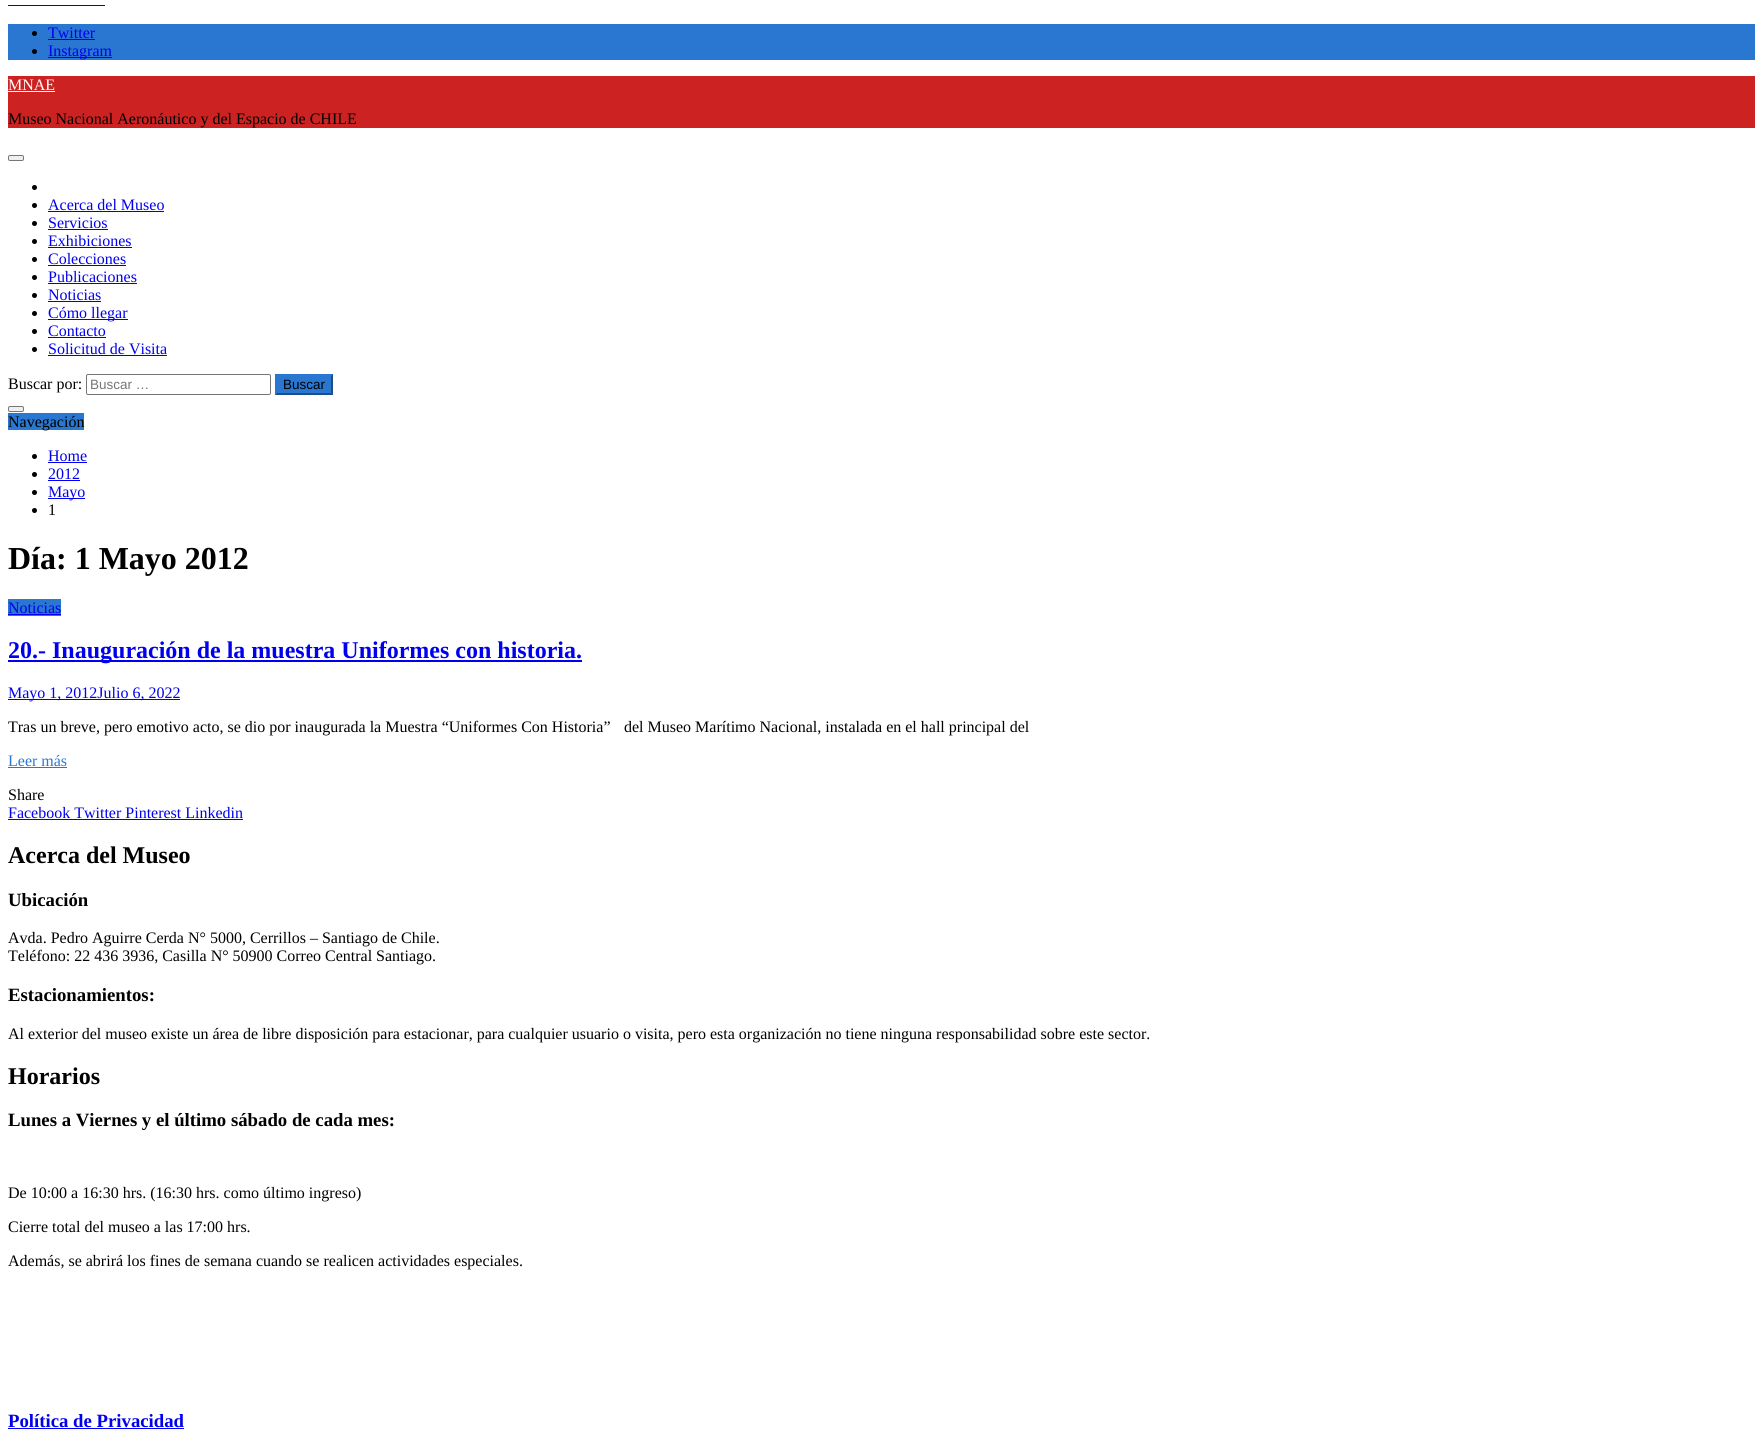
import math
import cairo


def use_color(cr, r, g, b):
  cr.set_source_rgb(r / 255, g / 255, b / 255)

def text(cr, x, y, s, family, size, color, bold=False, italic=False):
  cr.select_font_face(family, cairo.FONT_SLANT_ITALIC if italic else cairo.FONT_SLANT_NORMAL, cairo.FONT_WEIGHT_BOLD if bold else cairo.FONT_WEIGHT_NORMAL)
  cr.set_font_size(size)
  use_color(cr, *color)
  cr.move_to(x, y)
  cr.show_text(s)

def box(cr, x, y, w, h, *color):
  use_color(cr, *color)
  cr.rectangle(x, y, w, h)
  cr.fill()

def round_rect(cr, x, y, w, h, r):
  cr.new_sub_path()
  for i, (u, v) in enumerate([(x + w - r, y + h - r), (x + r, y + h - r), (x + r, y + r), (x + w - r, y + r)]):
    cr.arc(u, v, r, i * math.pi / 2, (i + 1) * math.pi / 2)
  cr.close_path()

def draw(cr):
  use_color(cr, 255, 255, 255)
  cr.paint()
  box(cr, 8, 5, 97, 1, 0, 0, 238)
  box(cr, 8, 24, 1747, 36, 41, 119, 209)
  use_color(cr, 0, 0, 0)
  cr.arc(34.5, 33.5, 2.5, 0, 2 * math.pi)
  cr.fill()
  box(cr, 48, 39, 47, 1, 0, 0, 238)
  use_color(cr, 0, 0, 0)
  cr.arc(34.5, 51.5, 2.5, 0, 2 * math.pi)
  cr.fill()
  box(cr, 48, 57, 64, 1, 0, 0, 238)
  box(cr, 8, 76, 1747, 52, 204, 34, 34)
  box(cr, 8, 91, 47, 1, 255, 255, 255)
  use_color(cr, 239, 239, 239)
  round_rect(cr, 8.5, 155.5, 15, 5, 1.5)
  cr.fill_preserve()
  use_color(cr, 118, 118, 118)
  cr.set_line_width(1)
  cr.stroke()
  use_color(cr, 0, 0, 0)
  cr.arc(34.5, 187.5, 2.5, 0, 2 * math.pi)
  cr.fill()
  cr.arc(34.5, 205.5, 2.5, 0, 2 * math.pi)
  cr.fill()
  box(cr, 48, 211, 116, 1, 0, 0, 238)
  use_color(cr, 0, 0, 0)
  cr.arc(34.5, 223.5, 2.5, 0, 2 * math.pi)
  cr.fill()
  box(cr, 48, 229, 60, 1, 0, 0, 238)
  use_color(cr, 0, 0, 0)
  cr.arc(34.5, 241.5, 2.5, 0, 2 * math.pi)
  cr.fill()
  box(cr, 48, 247, 84, 1, 0, 0, 238)
  use_color(cr, 0, 0, 0)
  cr.arc(34.5, 259.5, 2.5, 0, 2 * math.pi)
  cr.fill()
  box(cr, 48, 265, 78, 1, 0, 0, 238)
  use_color(cr, 0, 0, 0)
  cr.arc(34.5, 277.5, 2.5, 0, 2 * math.pi)
  cr.fill()
  box(cr, 48, 283, 89, 1, 0, 0, 238)
  use_color(cr, 0, 0, 0)
  cr.arc(34.5, 295.5, 2.5, 0, 2 * math.pi)
  cr.fill()
  box(cr, 48, 301, 53, 1, 0, 0, 238)
  use_color(cr, 0, 0, 0)
  cr.arc(34.5, 313.5, 2.5, 0, 2 * math.pi)
  cr.fill()
  box(cr, 48, 319, 80, 1, 0, 0, 238)
  use_color(cr, 0, 0, 0)
  cr.arc(34.5, 331.5, 2.5, 0, 2 * math.pi)
  cr.fill()
  box(cr, 48, 337, 58, 1, 0, 0, 238)
  use_color(cr, 0, 0, 0)
  cr.arc(34.5, 349.5, 2.5, 0, 2 * math.pi)
  cr.fill()
  box(cr, 48, 355, 119, 1, 0, 0, 238)
  round_rect(cr, 86.5, 374.5, 184, 20, 1.5)
  use_color(cr, 118, 118, 118)
  cr.stroke()
  box(cr, 275, 374, 58, 21, 41, 119, 209)
  use_color(cr, 27, 79, 139)
  cr.new_path()
  cr.move_to(333, 374)
  cr.line_to(333, 395)
  cr.line_to(331, 393)
  cr.line_to(331, 376)
  cr.close_path()
  cr.fill()
  cr.new_path()
  cr.move_to(333, 395)
  cr.line_to(275, 395)
  cr.line_to(277, 393)
  cr.line_to(331, 393)
  cr.close_path()
  cr.fill()
  use_color(cr, 41, 119, 209)
  cr.new_path()
  cr.move_to(275, 395)
  cr.line_to(275, 374)
  cr.line_to(277, 376)
  cr.line_to(277, 393)
  cr.close_path()
  cr.fill()
  use_color(cr, 239, 239, 239)
  round_rect(cr, 8.5, 406.5, 15, 5, 1.5)
  cr.fill_preserve()
  use_color(cr, 118, 118, 118)
  cr.stroke()
  box(cr, 8, 413, 76, 17, 41, 119, 209)
  use_color(cr, 0, 0, 0)
  cr.arc(34.5, 456.5, 2.5, 0, 2 * math.pi)
  cr.fill()
  box(cr, 48, 462, 39, 1, 0, 0, 238)
  use_color(cr, 0, 0, 0)
  cr.arc(34.5, 474.5, 2.5, 0, 2 * math.pi)
  cr.fill()
  box(cr, 48, 480, 32, 1, 0, 0, 238)
  use_color(cr, 0, 0, 0)
  cr.arc(34.5, 492.5, 2.5, 0, 2 * math.pi)
  cr.fill()
  box(cr, 48, 498, 37, 1, 0, 0, 238)
  use_color(cr, 0, 0, 0)
  cr.arc(34.5, 510.5, 2.5, 0, 2 * math.pi)
  cr.fill()
  box(cr, 8, 599, 53, 17, 41, 119, 209)
  box(cr, 8, 614, 53, 1, 0, 0, 238)
  box(cr, 8, 660, 574, 2, 0, 0, 238)
  box(cr, 8, 699, 172, 1, 0, 0, 238)
  box(cr, 8, 767, 59, 1, 41, 119, 209)
  box(cr, 8, 819, 235, 1, 0, 0, 238)
  box(cr, 8, 1428, 176, 1, 0, 0, 238)
  text(cr, 48, 38, "Twitter", "Liberation Serif", 16, (0, 0, 238))
  text(cr, 48, 56, "Instagram", "Liberation Serif", 16, (0, 0, 238))
  text(cr, 8, 90, "MNAE", "Liberation Serif", 16, (255, 255, 255))
  text(cr, 8, 124, "Museo Nacional Aeronáutico y del Espacio de CHILE", "Liberation Serif", 16, (0, 0, 0))
  text(cr, 48, 210, "Acerca del Museo", "Liberation Serif", 16, (0, 0, 238))
  text(cr, 48, 228, "Servicios", "Liberation Serif", 16, (0, 0, 238))
  text(cr, 48, 246, "Exhibiciones", "Liberation Serif", 16, (0, 0, 238))
  text(cr, 48, 264, "Colecciones", "Liberation Serif", 16, (0, 0, 238))
  text(cr, 48, 282, "Publicaciones", "Liberation Serif", 16, (0, 0, 238))
  text(cr, 48, 300, "Noticias", "Liberation Serif", 16, (0, 0, 238))
  text(cr, 48, 318, "Cómo llegar", "Liberation Serif", 16, (0, 0, 238))
  text(cr, 48, 336, "Contacto", "Liberation Serif", 16, (0, 0, 238))
  text(cr, 48, 354, "Solicitud de Visita", "Liberation Serif", 16, (0, 0, 238))
  text(cr, 8, 389, "Buscar por:", "Liberation Serif", 16, (0, 0, 0))
  text(cr, 90, 389, "Buscar …", "Liberation Sans", 13.5, (117, 117, 117))
  text(cr, 283, 389, "Buscar", "Liberation Sans", 13.5, (0, 0, 0))
  text(cr, 8, 427, "Navegación", "Liberation Serif", 16, (0, 0, 0))
  text(cr, 48, 461, "Home", "Liberation Serif", 16, (0, 0, 238))
  text(cr, 48, 479, "2012", "Liberation Serif", 16, (0, 0, 238))
  text(cr, 48, 497, "Mayo", "Liberation Serif", 16, (0, 0, 238))
  text(cr, 48, 515, "1", "Liberation Serif", 16, (0, 0, 0))
  text(cr, 8, 569, "Día: 1 Mayo 2012", "Liberation Serif", 32, (0, 0, 0), bold=True)
  text(cr, 8, 613, "Noticias", "Liberation Serif", 16, (0, 0, 238))
  text(cr, 8, 658, "20.- Inauguración de la muestra Uniformes con historia.", "Liberation Serif", 24, (0, 0, 238), bold=True)
  text(cr, 8, 698, "Mayo 1, 2012Julio 6, 2022", "Liberation Serif", 16, (0, 0, 238))
  text(cr, 8, 732, "Tras un breve, pero emotivo acto, se dio por inaugurada la Muestra “Uniformes Con Historia”", "Liberation Serif", 16, (0, 0, 0))
  text(cr, 624, 732, "del Museo Marítimo Nacional, instalada en el hall principal del", "Liberation Serif", 16, (0, 0, 0))
  text(cr, 8, 766, "Leer más", "Liberation Serif", 16, (41, 119, 209))
  text(cr, 8, 800, "Share", "Liberation Serif", 16, (0, 0, 0))
  text(cr, 8, 818, "Facebook Twitter Pinterest Linkedin", "Liberation Serif", 16, (0, 0, 238))
  text(cr, 8, 863, "Acerca del Museo", "Liberation Serif", 24, (0, 0, 0), bold=True)
  text(cr, 8, 906, "Ubicación", "Liberation Serif", 18.75, (0, 0, 0), bold=True)
  text(cr, 8, 943, "Avda. Pedro Aguirre Cerda N° 5000, Cerrillos – Santiago de Chile.", "Liberation Serif", 16, (0, 0, 0))
  text(cr, 8, 961, "Teléfono: 22 436 3936, Casilla N° 50900 Correo Central Santiago.", "Liberation Serif", 16, (0, 0, 0))
  text(cr, 8, 1001, "Estacionamientos:", "Liberation Serif", 18.75, (0, 0, 0), bold=True)
  text(cr, 8, 1039, "Al exterior del museo existe un área de libre disposición para estacionar, para cualquier usuario o visita, pero esta organización no tiene ninguna responsabilidad sobre este sector.", "Liberation Serif", 16, (0, 0, 0))
  text(cr, 8, 1084, "Horarios", "Liberation Serif", 24, (0, 0, 0), bold=True)
  text(cr, 8, 1126, "Lunes a Viernes y el último sábado de cada mes:", "Liberation Serif", 18.75, (0, 0, 0), bold=True)
  text(cr, 8, 1198, "De 10:00 a 16:30 hrs. (16:30 hrs. como último ingreso)", "Liberation Serif", 16, (0, 0, 0))
  text(cr, 8, 1232, "Cierre total del museo a las 17:00 hrs.", "Liberation Serif", 16, (0, 0, 0))
  text(cr, 8, 1266, "Además, se abrirá los fines de semana cuando se realicen actividades especiales.", "Liberation Serif", 16, (0, 0, 0))
  text(cr, 8, 1427, "Política de Privacidad", "Liberation Serif", 18.75, (0, 0, 238), bold=True)


surface = cairo.ImageSurface(cairo.FORMAT_RGB24, 1763, 1447)
cr = cairo.Context(surface)
options = cairo.FontOptions()
options.set_hint_metrics(cairo.HINT_METRICS_OFF)
options.set_hint_style(cairo.HINT_STYLE_NONE)
cr.set_font_options(options)
cr.set_miter_limit(4)
draw(cr)
surface.write_to_png("out.png")
